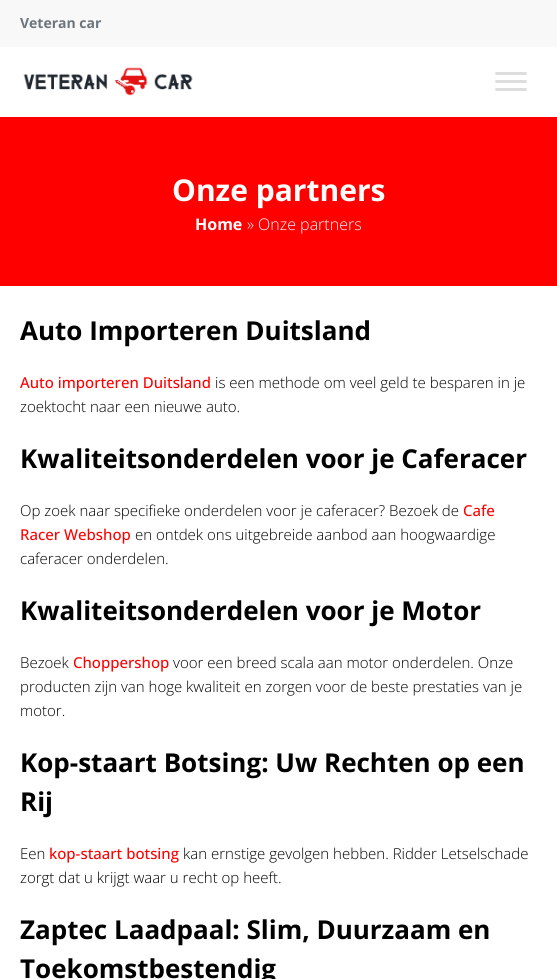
import math
import cairo


def use_color(cr, r, g, b):
  cr.set_source_rgb(r / 255, g / 255, b / 255)

def text(cr, x, y, s, family, size, color, bold=False, italic=False):
  cr.select_font_face(family, cairo.FONT_SLANT_ITALIC if italic else cairo.FONT_SLANT_NORMAL, cairo.FONT_WEIGHT_BOLD if bold else cairo.FONT_WEIGHT_NORMAL)
  cr.set_font_size(size)
  use_color(cr, *color)
  cr.move_to(x, y)
  cr.show_text(s)

def box(cr, x, y, w, h, *color):
  use_color(cr, *color)
  cr.rectangle(x, y, w, h)
  cr.fill()

def round_rect(cr, x, y, w, h, r):
  cr.new_sub_path()
  for i, (u, v) in enumerate([(x + w - r, y + h - r), (x + r, y + h - r), (x + r, y + r), (x + w - r, y + r)]):
    cr.arc(u, v, r, i * math.pi / 2, (i + 1) * math.pi / 2)
  cr.close_path()

def picture(cr, path, x, y, w, h):
  cr.save()
  cr.set_source_surface(cairo.ImageSurface.create_from_png(path), x, y)
  cr.rectangle(x, y, w, h)
  cr.fill()
  cr.restore()

def draw(cr):
  use_color(cr, 255, 255, 255)
  cr.paint()
  box(cr, 0, 0, 557, 47, 248, 248, 248)
  picture(cr, "img_01.png", 23, 67, 170, 29)
  use_color(cr, 221, 221, 221)
  round_rect(cr, 495, 72, 32, 3, 1.5)
  cr.fill()
  round_rect(cr, 495, 80, 32, 3, 1.5)
  cr.fill()
  round_rect(cr, 495, 88, 32, 3, 1.5)
  cr.fill()
  box(cr, 0, 117, 557, 169, 255, 0, 0)
  text(cr, 20, 28, "Veteran car", "Open Sans", 14, (108, 117, 125), bold=True)
  text(cr, 172, 201, "Onze partners", "Open Sans", 30, (255, 255, 255), bold=True)
  text(cr, 195, 230, "Home", "Open Sans", 16, (255, 255, 255), bold=True)
  text(cr, 247, 230, "» Onze partners", "Open Sans Light", 16, (255, 255, 255))
  text(cr, 20, 340, "Auto Importeren Duitsland", "Open Sans", 26, (0, 0, 0), bold=True)
  text(cr, 20, 388, "Auto importeren Duitsland", "Open Sans Medium", 15, (255, 0, 0))
  text(cr, 215, 388, "is een methode om veel geld te besparen in je", "Open Sans Light", 15, (0, 0, 0))
  text(cr, 20, 412, "zoektocht naar een nieuwe auto.", "Open Sans Light", 15, (0, 0, 0))
  text(cr, 20, 468, "Kwaliteitsonderdelen voor je Caferacer", "Open Sans", 26, (0, 0, 0), bold=True)
  text(cr, 20, 516, "Op zoek naar specifieke onderdelen voor je caferacer? Bezoek de", "Open Sans Light", 15, (0, 0, 0))
  text(cr, 463, 516, "Cafe", "Open Sans Medium", 15, (255, 0, 0))
  text(cr, 20, 540, "Racer Webshop", "Open Sans Medium", 15, (255, 0, 0))
  text(cr, 135, 540, "en ontdek ons uitgebreide aanbod aan hoogwaardige", "Open Sans Light", 15, (0, 0, 0))
  text(cr, 20, 564, "caferacer onderdelen.", "Open Sans Light", 15, (0, 0, 0))
  text(cr, 20, 620, "Kwaliteitsonderdelen voor je Motor", "Open Sans", 26, (0, 0, 0), bold=True)
  text(cr, 20, 668, "Bezoek", "Open Sans Light", 15, (0, 0, 0))
  text(cr, 73, 668, "Choppershop", "Open Sans Medium", 15, (255, 0, 0))
  text(cr, 173, 668, "voor een breed scala aan motor onderdelen. Onze", "Open Sans Light", 15, (0, 0, 0))
  text(cr, 20, 692, "producten zijn van hoge kwaliteit en zorgen voor de beste prestaties van je", "Open Sans Light", 15, (0, 0, 0))
  text(cr, 20, 716, "motor.", "Open Sans Light", 15, (0, 0, 0))
  text(cr, 20, 772, "Kop-staart Botsing: Uw Rechten op een", "Open Sans", 26, (0, 0, 0), bold=True)
  text(cr, 20, 811, "Rij", "Open Sans", 26, (0, 0, 0), bold=True)
  text(cr, 20, 859, "Een", "Open Sans Light", 15, (0, 0, 0))
  text(cr, 49, 859, "kop-staart botsing", "Open Sans Medium", 15, (255, 0, 0))
  text(cr, 183, 859, "kan ernstige gevolgen hebben. Ridder Letselschade", "Open Sans Light", 15, (0, 0, 0))
  text(cr, 20, 883, "zorgt dat u krijgt waar u recht op heeft.", "Open Sans Light", 15, (0, 0, 0))
  text(cr, 20, 939, "Zaptec Laadpaal: Slim, Duurzaam en", "Open Sans", 26, (0, 0, 0), bold=True)
  text(cr, 20, 978, "Toekomstbestendig", "Open Sans", 26, (0, 0, 0), bold=True)


surface = cairo.ImageSurface(cairo.FORMAT_RGB24, 557, 979)
cr = cairo.Context(surface)
options = cairo.FontOptions()
options.set_hint_metrics(cairo.HINT_METRICS_OFF)
options.set_hint_style(cairo.HINT_STYLE_NONE)
cr.set_font_options(options)
cr.set_miter_limit(4)
draw(cr)
surface.write_to_png("out.png")
